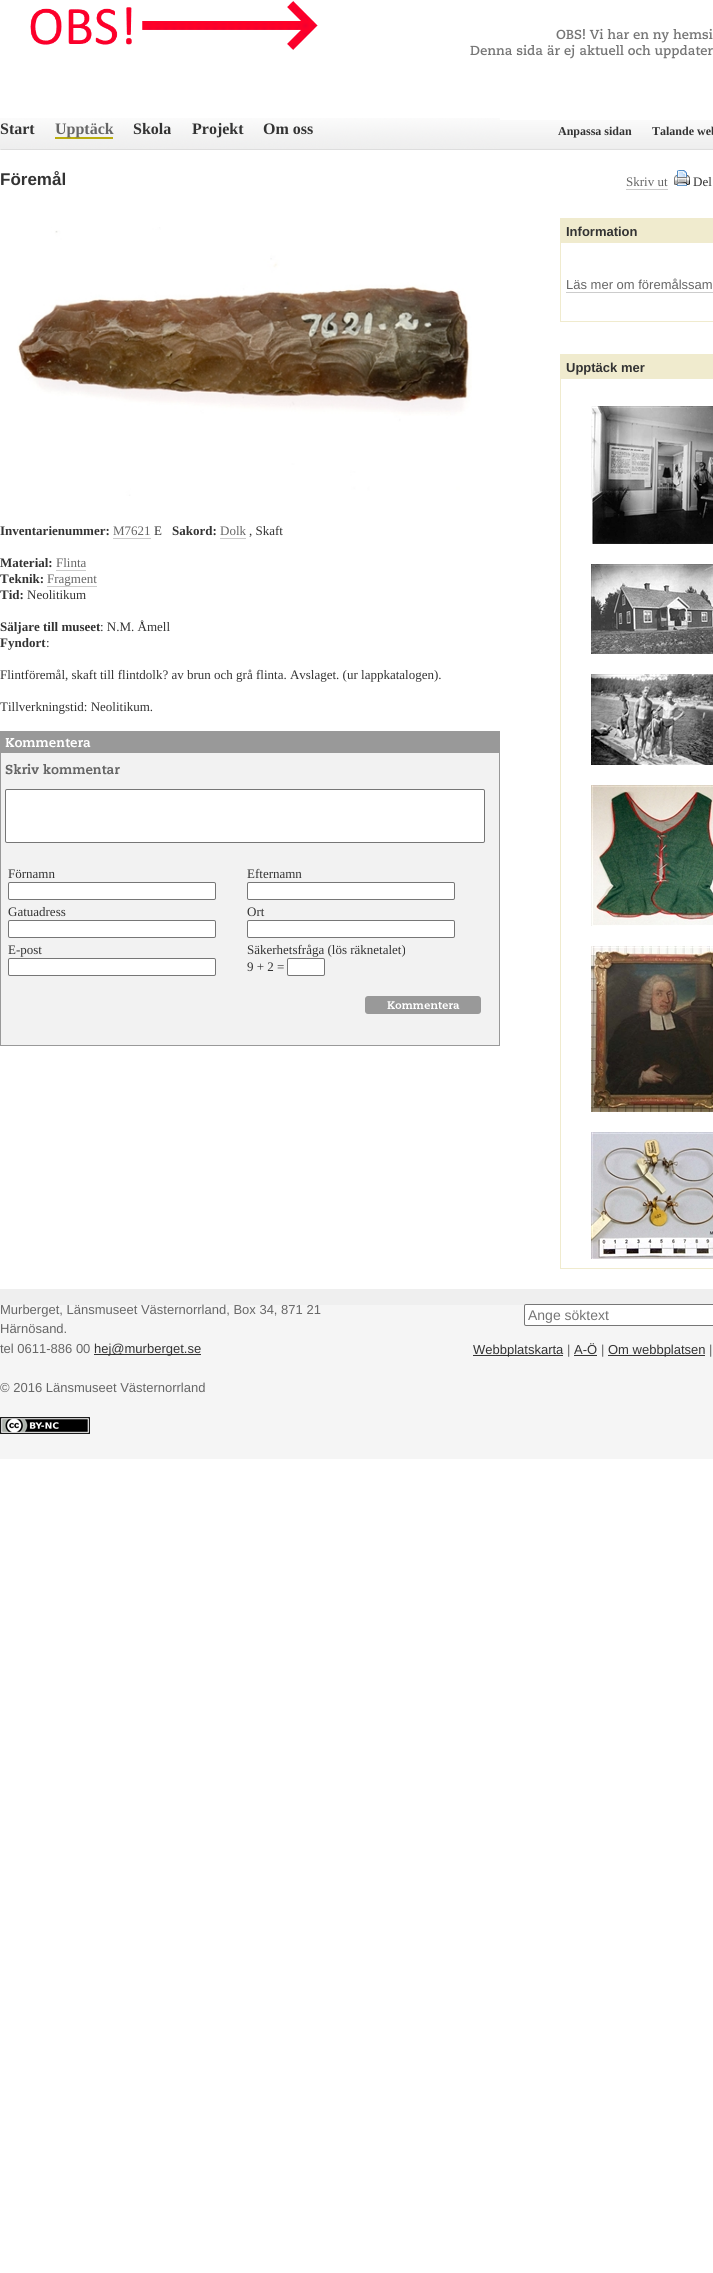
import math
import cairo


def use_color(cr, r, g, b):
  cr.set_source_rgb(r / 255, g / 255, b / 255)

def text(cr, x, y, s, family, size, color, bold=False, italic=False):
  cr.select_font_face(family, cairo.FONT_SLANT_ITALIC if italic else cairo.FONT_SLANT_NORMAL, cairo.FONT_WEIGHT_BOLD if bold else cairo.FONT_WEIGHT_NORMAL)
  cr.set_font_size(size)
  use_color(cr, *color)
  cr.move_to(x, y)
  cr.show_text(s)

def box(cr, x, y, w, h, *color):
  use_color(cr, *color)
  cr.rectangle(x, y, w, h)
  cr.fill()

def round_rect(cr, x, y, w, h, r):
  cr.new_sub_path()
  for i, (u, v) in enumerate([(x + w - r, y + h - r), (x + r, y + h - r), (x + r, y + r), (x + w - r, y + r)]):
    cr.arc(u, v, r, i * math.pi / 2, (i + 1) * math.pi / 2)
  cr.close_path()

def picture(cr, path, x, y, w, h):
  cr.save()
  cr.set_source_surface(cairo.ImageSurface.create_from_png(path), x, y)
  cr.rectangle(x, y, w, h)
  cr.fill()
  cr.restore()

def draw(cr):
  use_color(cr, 255, 255, 255)
  cr.paint()
  picture(cr, "img_01.png", 500, 120, 213, 30)
  picture(cr, "img_02.png", 30, 1, 288, 49)
  picture(cr, "img_03.png", 556, 28, 157, 15)
  picture(cr, "img_04.png", 470, 44, 243, 15)
  picture(cr, "img_05.png", 0, 118, 500, 32)
  box(cr, 55, 137, 58, 2, 186, 173, 14)
  picture(cr, "img_06.png", 17, 227, 455, 269)
  box(cr, 113, 538, 38, 1, 204, 204, 204)
  box(cr, 220, 538, 26, 1, 204, 204, 204)
  box(cr, 56, 570, 30, 1, 204, 204, 204)
  box(cr, 47, 586, 50, 1, 204, 204, 204)
  picture(cr, "img_07.png", 1, 732, 498, 20)
  cr.rectangle(0.5, 731.5, 499, 21)
  use_color(cr, 153, 153, 153)
  cr.set_line_width(1)
  cr.stroke()
  box(cr, 1, 753, 498, 292, 242, 242, 242)
  box(cr, 499, 753, 1, 293, 153, 153, 153)
  box(cr, 0, 1045, 500, 1, 153, 153, 153)
  box(cr, 0, 753, 1, 293, 153, 153, 153)
  picture(cr, "img_08.png", 5, 763, 115, 12)
  use_color(cr, 255, 255, 255)
  round_rect(cr, 5.5, 789.5, 479, 53, 1.5)
  cr.fill_preserve()
  use_color(cr, 118, 118, 118)
  cr.stroke()
  use_color(cr, 255, 255, 255)
  round_rect(cr, 8.5, 882.5, 207, 17, 1.5)
  cr.fill_preserve()
  use_color(cr, 118, 118, 118)
  cr.stroke()
  use_color(cr, 255, 255, 255)
  round_rect(cr, 247.5, 882.5, 207, 17, 1.5)
  cr.fill_preserve()
  use_color(cr, 118, 118, 118)
  cr.stroke()
  use_color(cr, 255, 255, 255)
  round_rect(cr, 8.5, 920.5, 207, 17, 1.5)
  cr.fill_preserve()
  use_color(cr, 118, 118, 118)
  cr.stroke()
  use_color(cr, 255, 255, 255)
  round_rect(cr, 247.5, 920.5, 207, 17, 1.5)
  cr.fill_preserve()
  use_color(cr, 118, 118, 118)
  cr.stroke()
  use_color(cr, 255, 255, 255)
  round_rect(cr, 8.5, 958.5, 207, 17, 1.5)
  cr.fill_preserve()
  use_color(cr, 118, 118, 118)
  cr.stroke()
  use_color(cr, 255, 255, 255)
  round_rect(cr, 287.5, 958.5, 37, 17, 1.5)
  cr.fill_preserve()
  use_color(cr, 118, 118, 118)
  cr.stroke()
  picture(cr, "img_09.png", 365, 996, 116, 18)
  box(cr, 626, 189, 42, 1, 204, 204, 204)
  picture(cr, "img_10.png", 674, 170, 16, 16)
  box(cr, 561, 218, 152, 25, 240, 235, 206)
  box(cr, 560, 321, 153, 1, 240, 235, 206)
  box(cr, 560, 218, 1, 104, 240, 235, 206)
  box(cr, 566, 292, 147, 1, 204, 204, 204)
  box(cr, 561, 354, 152, 25, 240, 235, 206)
  box(cr, 560, 1268, 153, 1, 240, 235, 206)
  box(cr, 560, 354, 1, 915, 240, 235, 206)
  picture(cr, "img_11.png", 591, 406, 122, 138)
  picture(cr, "img_12.png", 591, 564, 122, 90)
  picture(cr, "img_13.png", 591, 674, 122, 91)
  picture(cr, "img_14.png", 591, 785, 122, 141)
  picture(cr, "img_15.png", 591, 946, 122, 166)
  picture(cr, "img_16.png", 591, 1132, 122, 127)
  box(cr, 0, 1305, 713, 154, 245, 245, 245)
  box(cr, 0, 1289, 713, 16, 239, 239, 239)
  box(cr, 94, 1354, 107, 1, 51, 51, 51)
  picture(cr, "img_17.png", 0, 1417, 90, 17)
  use_color(cr, 255, 255, 255)
  round_rect(cr, 524.5, 1304.5, 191, 21, 1.5)
  cr.fill_preserve()
  use_color(cr, 118, 118, 118)
  cr.stroke()
  box(cr, 473, 1355, 90, 1, 51, 51, 51)
  box(cr, 574, 1355, 23, 1, 51, 51, 51)
  box(cr, 608, 1355, 97, 1, 51, 51, 51)
  text(cr, 0, 134, "Start", "Liberation Serif", 16, (51, 51, 51), bold=True)
  text(cr, 55, 134, "Upptäck", "Liberation Serif", 16, (102, 102, 102), bold=True)
  text(cr, 133, 134, "Skola", "Liberation Serif", 16, (51, 51, 51), bold=True)
  text(cr, 192, 134, "Projekt", "Liberation Serif", 16, (51, 51, 51), bold=True)
  text(cr, 263, 134, "Om oss", "Liberation Serif", 16, (51, 51, 51), bold=True)
  text(cr, 558, 135, "Anpassa sidan", "Liberation Serif", 12, (51, 51, 51), bold=True)
  text(cr, 652, 135, "Talande web", "Liberation Serif", 12, (51, 51, 51), bold=True)
  text(cr, 0, 185, "Föremål", "Liberation Sans", 17, (51, 51, 51), bold=True)
  text(cr, 0, 535, "Inventarienummer:", "Liberation Serif", 13, (51, 51, 51), bold=True)
  text(cr, 113, 535, "M7621", "Liberation Serif", 13, (102, 102, 102))
  text(cr, 154, 535, "E", "Liberation Serif", 13, (51, 51, 51))
  text(cr, 172, 535, "Sakord:", "Liberation Serif", 13, (51, 51, 51), bold=True)
  text(cr, 220, 535, "Dolk", "Liberation Serif", 13, (102, 102, 102))
  text(cr, 249, 535, ", Skaft", "Liberation Serif", 13, (51, 51, 51))
  text(cr, 0, 567, "Material:", "Liberation Serif", 13, (51, 51, 51), bold=True)
  text(cr, 56, 567, "Flinta", "Liberation Serif", 13, (102, 102, 102))
  text(cr, 0, 583, "Teknik:", "Liberation Serif", 13, (51, 51, 51), bold=True)
  text(cr, 47, 583, "Fragment", "Liberation Serif", 13, (102, 102, 102))
  text(cr, 0, 599, "Tid:", "Liberation Serif", 13, (51, 51, 51), bold=True)
  text(cr, 27, 599, "Neolitikum", "Liberation Serif", 13, (51, 51, 51))
  text(cr, 0, 631, "Säljare till museet", "Liberation Serif", 13, (51, 51, 51), bold=True)
  text(cr, 100, 631, ": N.M. Åmell", "Liberation Serif", 13, (51, 51, 51))
  text(cr, 0, 647, "Fyndort", "Liberation Serif", 13, (51, 51, 51), bold=True)
  text(cr, 46, 647, ":", "Liberation Serif", 13, (51, 51, 51))
  text(cr, 0, 679, "Flintföremål, skaft till flintdolk? av brun och grå flinta. Avslaget. (ur lappkatalogen).", "Liberation Serif", 13, (51, 51, 51))
  text(cr, 0, 711, "Tillverkningstid: Neolitikum.", "Liberation Serif", 13, (51, 51, 51))
  text(cr, 8, 878, "Förnamn", "Liberation Serif", 13, (51, 51, 51))
  text(cr, 247, 878, "Efternamn", "Liberation Serif", 13, (51, 51, 51))
  text(cr, 8, 916, "Gatuadress", "Liberation Serif", 13, (51, 51, 51))
  text(cr, 247, 916, "Ort", "Liberation Serif", 13, (51, 51, 51))
  text(cr, 8, 954, "E-post", "Liberation Serif", 13, (51, 51, 51))
  text(cr, 247, 954, "Säkerhetsfråga (lös räknetalet)", "Liberation Serif", 13, (51, 51, 51))
  text(cr, 247, 971, "9 + 2 =", "Liberation Serif", 13, (51, 51, 51))
  text(cr, 626, 186, "Skriv ut", "Liberation Serif", 13, (102, 102, 102))
  text(cr, 693, 186, "Del", "Liberation Serif", 13, (51, 51, 51))
  text(cr, 566, 236, "Information", "Liberation Sans", 13, (51, 51, 51), bold=True)
  text(cr, 566, 289, "Läs mer om föremålssam", "Liberation Sans", 13, (102, 102, 102))
  text(cr, 566, 372, "Upptäck mer", "Liberation Sans", 13, (51, 51, 51), bold=True)
  text(cr, 0, 1314, "Murberget, Länsmuseet Västernorrland, Box 34, 871 21", "Liberation Sans", 13, (102, 102, 102))
  text(cr, 0, 1333, "Härnösand.", "Liberation Sans", 13, (102, 102, 102))
  text(cr, 0, 1353, "tel 0611-886 00", "Liberation Sans", 13, (102, 102, 102))
  text(cr, 94, 1353, "hej@murberget.se", "Liberation Sans", 13, (51, 51, 51))
  text(cr, 0, 1392, "© 2016 Länsmuseet Västernorrland", "Liberation Sans", 13, (102, 102, 102))
  text(cr, 528, 1320, "Ange söktext", "Liberation Sans", 14, (117, 117, 117))
  text(cr, 473, 1354, "Webbplatskarta", "Liberation Sans", 13, (51, 51, 51))
  text(cr, 567, 1354, "|", "Liberation Sans", 13, (102, 102, 102))
  text(cr, 574, 1354, "A-Ö", "Liberation Sans", 13, (51, 51, 51))
  text(cr, 601, 1354, "|", "Liberation Sans", 13, (102, 102, 102))
  text(cr, 608, 1354, "Om webbplatsen", "Liberation Sans", 13, (51, 51, 51))
  text(cr, 709, 1354, "|", "Liberation Sans", 13, (102, 102, 102))


surface = cairo.ImageSurface(cairo.FORMAT_RGB24, 713, 2273)
cr = cairo.Context(surface)
options = cairo.FontOptions()
options.set_hint_metrics(cairo.HINT_METRICS_OFF)
options.set_hint_style(cairo.HINT_STYLE_NONE)
cr.set_font_options(options)
cr.set_miter_limit(4)
draw(cr)
surface.write_to_png("out.png")
